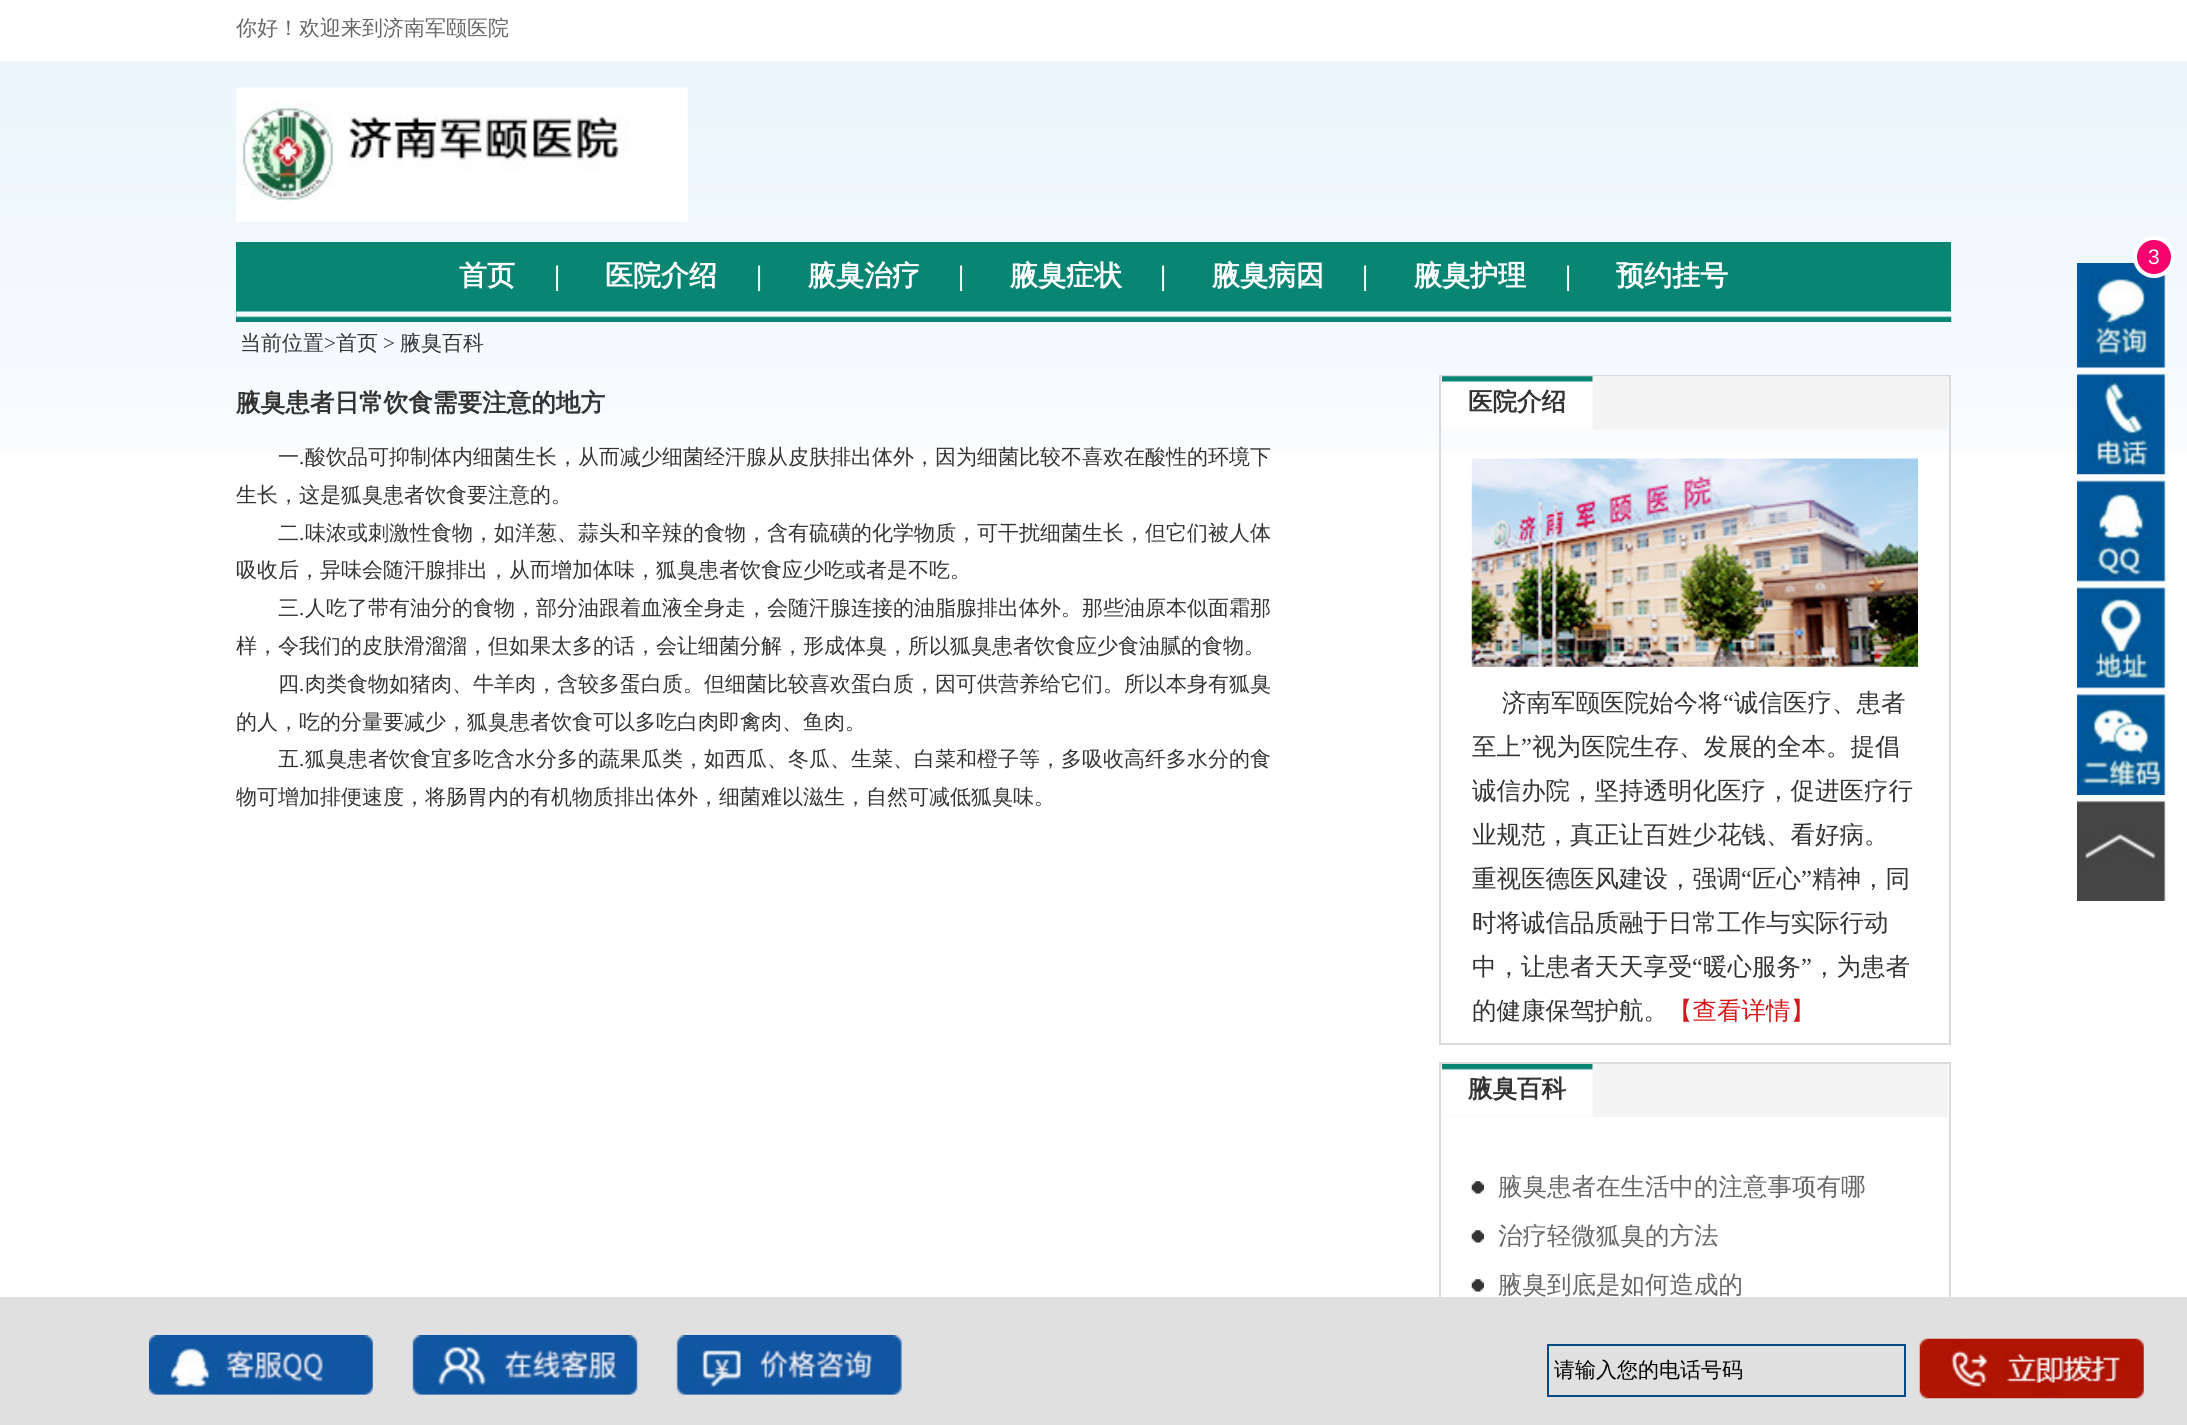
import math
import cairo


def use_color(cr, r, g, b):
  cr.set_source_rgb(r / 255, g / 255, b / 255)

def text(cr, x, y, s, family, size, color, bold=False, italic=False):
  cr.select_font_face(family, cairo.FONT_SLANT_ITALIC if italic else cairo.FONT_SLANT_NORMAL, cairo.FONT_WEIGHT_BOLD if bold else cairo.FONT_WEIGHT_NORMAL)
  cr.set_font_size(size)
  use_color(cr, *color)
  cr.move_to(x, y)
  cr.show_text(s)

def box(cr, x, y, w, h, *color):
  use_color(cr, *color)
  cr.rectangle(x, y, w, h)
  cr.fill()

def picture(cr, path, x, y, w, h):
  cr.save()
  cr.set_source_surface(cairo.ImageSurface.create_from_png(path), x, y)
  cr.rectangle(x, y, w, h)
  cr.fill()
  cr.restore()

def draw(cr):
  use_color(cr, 255, 255, 255)
  cr.paint()
  picture(cr, "img_01.png", 0, 61, 2187, 390)
  picture(cr, "img_02.png", 236, 87, 452, 135)
  picture(cr, "img_03.png", 2077, 263, 90, 105)
  use_color(cr, 247, 1, 111)
  cr.arc(2154, 257, 19, 0, 2 * math.pi)
  cr.fill_preserve()
  use_color(cr, 255, 255, 255)
  cr.set_line_width(4)
  cr.stroke()
  picture(cr, "img_04.png", 2077, 369, 90, 106)
  picture(cr, "img_05.png", 2077, 476, 90, 106)
  picture(cr, "img_06.png", 2077, 582, 90, 107)
  picture(cr, "img_07.png", 2077, 689, 90, 106)
  picture(cr, "img_08.png", 2077, 800, 89, 101)
  box(cr, 236, 242, 1715, 80, 8, 133, 115)
  picture(cr, "img_09.png", 236, 311, 1716, 11)
  cr.rectangle(1440, 376, 510, 668)
  use_color(cr, 219, 219, 219)
  cr.set_line_width(2)
  cr.stroke()
  box(cr, 1442, 376, 506, 53, 244, 244, 244)
  picture(cr, "img_10.png", 1442, 376, 151, 53)
  picture(cr, "img_11.png", 1471, 458, 447, 209)
  cr.rectangle(1440, 1063, 510, 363)
  use_color(cr, 219, 219, 219)
  cr.stroke()
  box(cr, 1442, 1064, 506, 53, 244, 244, 244)
  picture(cr, "img_12.png", 1442, 1064, 151, 53)
  picture(cr, "img_13.png", 1471, 1181, 13, 13)
  picture(cr, "img_13.png", 1471, 1230, 13, 13)
  picture(cr, "img_13.png", 1471, 1279, 13, 13)
  box(cr, 0, 1297, 2187, 128, 225, 224, 225)
  picture(cr, "img_14.png", 149, 1335, 224, 60)
  picture(cr, "img_15.png", 412, 1335, 226, 60)
  picture(cr, "img_16.png", 676, 1335, 226, 60)
  cr.rectangle(1548, 1345, 357, 51)
  use_color(cr, 0, 74, 131)
  cr.stroke()
  picture(cr, "img_17.png", 1919, 1338, 225, 61)
  text(cr, 236, 35, "你好！欢迎来到济南军颐医院", "WenQuanYi Zen Hei Medium", 21, (102, 102, 102))
  text(cr, 2148, 264, "3", "Liberation Sans", 21, (255, 255, 255))
  text(cr, 459, 285, "首页", "WenQuanYi Zen Hei", 28, (255, 255, 255), bold=True)
  text(cr, 554, 285, "|", "Liberation Serif", 28, (255, 255, 255), bold=True)
  text(cr, 605, 285, "医院介绍", "WenQuanYi Zen Hei", 28, (255, 255, 255), bold=True)
  text(cr, 756, 285, "|", "Liberation Serif", 28, (255, 255, 255), bold=True)
  text(cr, 808, 285, "腋臭治疗", "WenQuanYi Zen Hei", 28, (255, 255, 255), bold=True)
  text(cr, 958, 285, "|", "Liberation Serif", 28, (255, 255, 255), bold=True)
  text(cr, 1010, 285, "腋臭症状", "WenQuanYi Zen Hei", 28, (255, 255, 255), bold=True)
  text(cr, 1160, 285, "|", "Liberation Serif", 28, (255, 255, 255), bold=True)
  text(cr, 1212, 285, "腋臭病因", "WenQuanYi Zen Hei", 28, (255, 255, 255), bold=True)
  text(cr, 1362, 285, "|", "Liberation Serif", 28, (255, 255, 255), bold=True)
  text(cr, 1414, 285, "腋臭护理", "WenQuanYi Zen Hei", 28, (255, 255, 255), bold=True)
  text(cr, 1565, 285, "|", "Liberation Serif", 28, (255, 255, 255), bold=True)
  text(cr, 1616, 285, "预约挂号", "WenQuanYi Zen Hei", 28, (255, 255, 255), bold=True)
  text(cr, 240, 350, "当前位置", "WenQuanYi Zen Hei Medium", 21, (51, 51, 51))
  text(cr, 324, 350, ">", "Liberation Serif", 21, (51, 51, 51))
  text(cr, 336, 350, "首页", "WenQuanYi Zen Hei Medium", 21, (51, 51, 51))
  text(cr, 383, 350, ">", "Liberation Serif", 21, (51, 51, 51))
  text(cr, 400, 350, "腋臭百科", "WenQuanYi Zen Hei Medium", 21, (51, 51, 51))
  text(cr, 236, 411, "腋臭患者日常饮食需要注意的地方", "WenQuanYi Zen Hei", 24.6, (51, 51, 51), bold=True)
  text(cr, 278, 464, "一", "WenQuanYi Zen Hei Medium", 21, (51, 51, 51))
  text(cr, 305, 464, "酸饮品可抑制体内细菌生长，从而减少细菌经汗腺从皮肤排出体外，因为细菌比较不喜欢在酸性的环境下", "WenQuanYi Zen Hei Medium", 21, (51, 51, 51))
  text(cr, 299, 464, ".", "Liberation Serif", 21, (51, 51, 51))
  text(cr, 236, 502, "生长，这是狐臭患者饮食要注意的。", "WenQuanYi Zen Hei Medium", 21, (51, 51, 51))
  text(cr, 278, 540, "二", "WenQuanYi Zen Hei Medium", 21, (51, 51, 51))
  text(cr, 299, 540, ".", "Liberation Serif", 21, (51, 51, 51))
  text(cr, 305, 540, "味浓或刺激性食物，如洋葱、蒜头和辛辣的食物，含有硫磺的化学物质，可干扰细菌生长，但它们被人体", "WenQuanYi Zen Hei Medium", 21, (51, 51, 51))
  text(cr, 236, 577, "吸收后，异味会随汗腺排出，从而增加体味，狐臭患者饮食应少吃或者是不吃。", "WenQuanYi Zen Hei Medium", 21, (51, 51, 51))
  text(cr, 278, 615, "三", "WenQuanYi Zen Hei Medium", 21, (51, 51, 51))
  text(cr, 299, 615, ".", "Liberation Serif", 21, (51, 51, 51))
  text(cr, 305, 615, "人吃了带有油分的食物，部分油跟着血液全身走，会随汗腺连接的油脂腺排出体外。那些油原本似面霜那", "WenQuanYi Zen Hei Medium", 21, (51, 51, 51))
  text(cr, 236, 653, "样，令我们的皮肤滑溜溜，但如果太多的话，会让细菌分解，形成体臭，所以狐臭患者饮食应少食油腻的食物。", "WenQuanYi Zen Hei Medium", 21, (51, 51, 51))
  text(cr, 278, 691, "四", "WenQuanYi Zen Hei Medium", 21, (51, 51, 51))
  text(cr, 299, 691, ".", "Liberation Serif", 21, (51, 51, 51))
  text(cr, 305, 691, "肉类食物如猪肉、牛羊肉，含较多蛋白质。但细菌比较喜欢蛋白质，因可供营养给它们。所以本身有狐臭", "WenQuanYi Zen Hei Medium", 21, (51, 51, 51))
  text(cr, 236, 729, "的人，吃的分量要减少，狐臭患者饮食可以多吃白肉即禽肉、鱼肉。", "WenQuanYi Zen Hei Medium", 21, (51, 51, 51))
  text(cr, 278, 766, "五", "WenQuanYi Zen Hei Medium", 21, (51, 51, 51))
  text(cr, 299, 766, ".", "Liberation Serif", 21, (51, 51, 51))
  text(cr, 305, 766, "狐臭患者饮食宜多吃含水分多的蔬果瓜类，如西瓜、冬瓜、生菜、白菜和橙子等，多吸收高纤多水分的食", "WenQuanYi Zen Hei Medium", 21, (51, 51, 51))
  text(cr, 236, 804, "物可增加排便速度，将肠胃内的有机物质排出体外，细菌难以滋生，自然可减低狐臭味。", "WenQuanYi Zen Hei Medium", 21, (51, 51, 51))
  text(cr, 1468, 410, "医院介绍", "WenQuanYi Zen Hei", 24.5, (51, 51, 51), bold=True)
  text(cr, 1502, 711, "济南军颐医院始今将", "WenQuanYi Zen Hei Medium", 24.5, (51, 51, 51))
  text(cr, 1723, 711, "“", "Liberation Serif", 24.5, (51, 51, 51))
  text(cr, 1734, 711, "诚信医疗、患者", "WenQuanYi Zen Hei Medium", 24.5, (51, 51, 51))
  text(cr, 1472, 755, "至上", "WenQuanYi Zen Hei Medium", 24.5, (51, 51, 51))
  text(cr, 1521, 755, "”", "Liberation Serif", 24.5, (51, 51, 51))
  text(cr, 1532, 755, "视为医院生存、发展的全本。提倡", "WenQuanYi Zen Hei Medium", 24.5, (51, 51, 51))
  text(cr, 1472, 799, "诚信办院，坚持透明化医疗，促进医疗行", "WenQuanYi Zen Hei Medium", 24.5, (51, 51, 51))
  text(cr, 1472, 843, "业规范，真正让百姓少花钱、看好病。", "WenQuanYi Zen Hei Medium", 24.5, (51, 51, 51))
  text(cr, 1472, 887, "重视医德医风建设，强调", "WenQuanYi Zen Hei Medium", 24.5, (51, 51, 51))
  text(cr, 1741, 887, "“", "Liberation Serif", 24.5, (51, 51, 51))
  text(cr, 1752, 887, "匠心", "WenQuanYi Zen Hei Medium", 24.5, (51, 51, 51))
  text(cr, 1801, 887, "”", "Liberation Serif", 24.5, (51, 51, 51))
  text(cr, 1812, 887, "精神，同", "WenQuanYi Zen Hei Medium", 24.5, (51, 51, 51))
  text(cr, 1472, 931, "时将诚信品质融于日常工作与实际行动", "WenQuanYi Zen Hei Medium", 24.5, (51, 51, 51))
  text(cr, 1472, 975, "中，让患者天天享受", "WenQuanYi Zen Hei Medium", 24.5, (51, 51, 51))
  text(cr, 1692, 975, "“", "Liberation Serif", 24.5, (51, 51, 51))
  text(cr, 1703, 975, "暖心服务", "WenQuanYi Zen Hei Medium", 24.5, (51, 51, 51))
  text(cr, 1801, 975, "”", "Liberation Serif", 24.5, (51, 51, 51))
  text(cr, 1812, 975, "，为患者", "WenQuanYi Zen Hei Medium", 24.5, (51, 51, 51))
  text(cr, 1472, 1019, "的健康保驾护航。", "WenQuanYi Zen Hei Medium", 24.5, (51, 51, 51))
  text(cr, 1668, 1019, "【查看详情】", "WenQuanYi Zen Hei Medium", 24.5, (213, 23, 25))
  text(cr, 1468, 1097, "腋臭百科", "WenQuanYi Zen Hei", 24.5, (51, 51, 51), bold=True)
  text(cr, 1498, 1195, "腋臭患者在生活中的注意事项有哪", "WenQuanYi Zen Hei Medium", 24.5, (102, 102, 102))
  text(cr, 1498, 1244, "治疗轻微狐臭的方法", "WenQuanYi Zen Hei Medium", 24.5, (102, 102, 102))
  text(cr, 1498, 1293, "腋臭到底是如何造成的", "WenQuanYi Zen Hei Medium", 24.5, (102, 102, 102))
  text(cr, 1554, 1377, "请输入您的电话号码", "WenQuanYi Zen Hei Medium", 21, (0, 0, 0))


surface = cairo.ImageSurface(cairo.FORMAT_RGB24, 2187, 1425)
cr = cairo.Context(surface)
options = cairo.FontOptions()
options.set_hint_metrics(cairo.HINT_METRICS_OFF)
options.set_hint_style(cairo.HINT_STYLE_NONE)
cr.set_font_options(options)
cr.set_miter_limit(4)
draw(cr)
surface.write_to_png("out.png")
